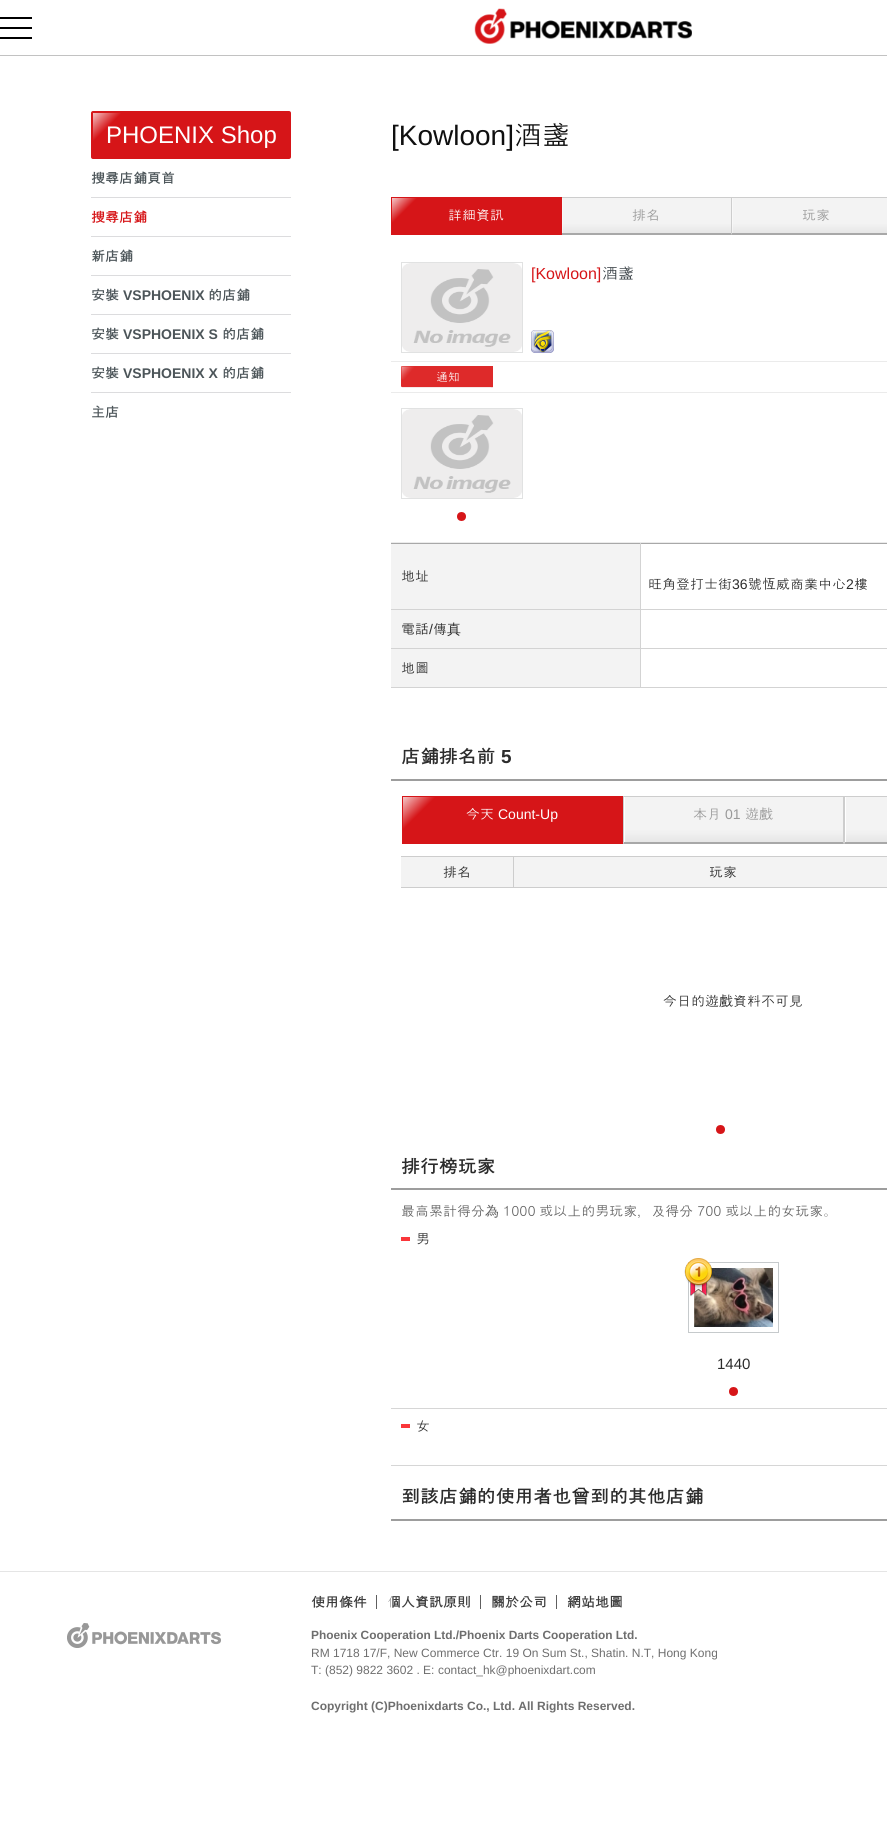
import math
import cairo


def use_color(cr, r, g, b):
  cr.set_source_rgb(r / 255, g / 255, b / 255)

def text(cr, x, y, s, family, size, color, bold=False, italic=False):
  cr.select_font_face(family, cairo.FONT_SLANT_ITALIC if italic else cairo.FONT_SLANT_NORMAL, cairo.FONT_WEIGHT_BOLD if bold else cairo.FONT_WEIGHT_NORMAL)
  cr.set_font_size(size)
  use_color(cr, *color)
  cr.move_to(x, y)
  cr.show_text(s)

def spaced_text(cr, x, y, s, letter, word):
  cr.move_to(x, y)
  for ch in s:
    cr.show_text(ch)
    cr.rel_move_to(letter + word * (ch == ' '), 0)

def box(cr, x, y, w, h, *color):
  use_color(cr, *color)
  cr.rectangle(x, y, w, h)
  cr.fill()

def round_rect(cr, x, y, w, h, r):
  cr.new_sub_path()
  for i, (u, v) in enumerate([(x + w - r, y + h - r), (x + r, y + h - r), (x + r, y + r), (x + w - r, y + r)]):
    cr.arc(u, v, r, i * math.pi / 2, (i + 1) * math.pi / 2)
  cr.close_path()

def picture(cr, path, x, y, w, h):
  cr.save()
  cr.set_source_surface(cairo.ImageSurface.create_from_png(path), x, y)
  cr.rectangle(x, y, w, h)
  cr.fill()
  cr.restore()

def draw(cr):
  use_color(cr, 255, 255, 255)
  cr.paint()
  box(cr, 0, 55, 887, 1, 194, 194, 194)
  box(cr, 0, 27, 32, 2, 0, 0, 0)
  box(cr, 0, 17, 32, 2, 0, 0, 0)
  box(cr, 0, 37, 32, 2, 0, 0, 0)
  picture(cr, "img_01.png", 474, 8, 218, 36)
  gradient = cairo.LinearGradient(131, 75, 251, 195)
  gradient.add_color_stop_rgba(0, 0.957, 0.769, 0.773, 1)
  gradient.add_color_stop_rgba(0.12, 0.839, 0.082, 0.094, 1)
  cr.set_source(gradient)
  cr.rectangle(93, 113, 196, 44)
  cr.fill()
  round_rect(cr, 92, 112, 198, 46, 1)
  use_color(cr, 214, 21, 24)
  cr.stroke()
  box(cr, 91, 197, 200, 1, 220, 220, 222)
  box(cr, 91, 236, 200, 1, 220, 220, 222)
  box(cr, 91, 275, 200, 1, 220, 220, 222)
  box(cr, 91, 314, 200, 1, 220, 220, 222)
  box(cr, 91, 353, 200, 1, 220, 220, 222)
  box(cr, 91, 392, 200, 1, 220, 220, 222)
  gradient = cairo.LinearGradient(426, 165, 528, 267)
  gradient.add_color_stop_rgba(0, 0.957, 0.769, 0.773, 1)
  gradient.add_color_stop_rgba(0.12, 0.839, 0.082, 0.094, 1)
  cr.set_source(gradient)
  cr.rectangle(392, 198, 169, 35)
  cr.fill()
  box(cr, 561, 197, 326, 1, 205, 205, 205)
  box(cr, 391, 197, 171, 1, 214, 21, 24)
  use_color(cr, 168, 168, 168)
  cr.new_path()
  cr.move_to(732, 235)
  cr.line_to(561, 235)
  cr.line_to(562, 233)
  cr.line_to(731, 233)
  cr.close_path()
  cr.fill()
  box(cr, 561, 197, 1, 38, 214, 21, 24)
  box(cr, 391, 233, 171, 2, 214, 21, 24)
  box(cr, 391, 197, 1, 38, 214, 21, 24)
  picture(cr, "img_02.png", 562, 198, 169, 35)
  picture(cr, "img_03.png", 732, 198, 155, 35)
  use_color(cr, 168, 168, 168)
  cr.new_path()
  cr.move_to(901, 235)
  cr.line_to(731, 235)
  cr.line_to(732, 233)
  cr.line_to(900, 233)
  cr.close_path()
  cr.fill()
  use_color(cr, 205, 205, 205)
  cr.new_path()
  cr.move_to(731, 235)
  cr.line_to(731, 197)
  cr.line_to(732, 198)
  cr.line_to(732, 233)
  cr.close_path()
  cr.fill()
  box(cr, 391, 542, 496, 1, 235, 235, 235)
  cr.rectangle(401.5, 262.5, 121, 90)
  use_color(cr, 225, 226, 226)
  cr.set_line_width(1)
  cr.stroke()
  picture(cr, "img_04.png", 402, 263, 120, 89)
  picture(cr, "img_05.png", 531, 330, 23, 23)
  box(cr, 391, 361, 496, 1, 235, 235, 235)
  picture(cr, "img_06.png", 491, 387, 2, 1)
  picture(cr, "img_07.png", 401, 366, 92, 22)
  box(cr, 391, 392, 496, 1, 235, 235, 235)
  cr.rectangle(401.5, 408.5, 121, 90)
  use_color(cr, 225, 226, 226)
  cr.stroke()
  picture(cr, "img_04.png", 402, 409, 120, 89)
  use_color(cr, 214, 21, 24)
  cr.arc(461.5, 516.5, 4.5, 0, 2 * math.pi)
  cr.fill()
  box(cr, 391, 543, 496, 1, 168, 168, 168)
  box(cr, 391, 544, 249, 65, 243, 243, 243)
  box(cr, 640, 687, 247, 1, 211, 211, 211)
  box(cr, 640, 648, 1, 40, 211, 211, 211)
  box(cr, 640, 648, 247, 1, 211, 211, 211)
  box(cr, 640, 609, 1, 40, 211, 211, 211)
  box(cr, 640, 609, 247, 1, 211, 211, 211)
  box(cr, 640, 543, 1, 67, 211, 211, 211)
  box(cr, 391, 609, 250, 1, 211, 211, 211)
  box(cr, 391, 610, 249, 38, 243, 243, 243)
  box(cr, 391, 648, 250, 1, 211, 211, 211)
  box(cr, 391, 649, 249, 38, 243, 243, 243)
  box(cr, 391, 687, 250, 1, 211, 211, 211)
  box(cr, 391, 779, 496, 2, 157, 157, 157)
  gradient = cairo.LinearGradient(447, 754, 579, 886)
  gradient.add_color_stop_rgba(0, 0.957, 0.769, 0.773, 1)
  gradient.add_color_stop_rgba(0.12, 0.839, 0.082, 0.094, 1)
  cr.set_source(gradient)
  cr.rectangle(403, 797, 219, 45)
  cr.fill()
  box(cr, 402, 796, 221, 1, 214, 21, 24)
  box(cr, 622, 796, 1, 48, 214, 21, 24)
  box(cr, 402, 842, 221, 2, 214, 21, 24)
  box(cr, 402, 796, 1, 48, 214, 21, 24)
  picture(cr, "img_08.png", 625, 797, 218, 45)
  box(cr, 623, 796, 264, 1, 205, 205, 205)
  cr.new_path()
  cr.move_to(844, 796)
  cr.line_to(844, 844)
  cr.line_to(843, 842)
  cr.line_to(843, 797)
  cr.close_path()
  cr.fill()
  use_color(cr, 168, 168, 168)
  cr.new_path()
  cr.move_to(844, 844)
  cr.line_to(623, 844)
  cr.line_to(624, 842)
  cr.line_to(843, 842)
  cr.close_path()
  cr.fill()
  use_color(cr, 205, 205, 205)
  cr.new_path()
  cr.move_to(623, 844)
  cr.line_to(623, 796)
  cr.line_to(624, 797)
  cr.line_to(624, 842)
  cr.close_path()
  cr.fill()
  picture(cr, "img_09.png", 846, 797, 41, 45)
  use_color(cr, 168, 168, 168)
  cr.new_path()
  cr.move_to(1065, 844)
  cr.line_to(844, 844)
  cr.line_to(845, 842)
  cr.line_to(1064, 842)
  cr.close_path()
  cr.fill()
  use_color(cr, 205, 205, 205)
  cr.new_path()
  cr.move_to(844, 844)
  cr.line_to(844, 796)
  cr.line_to(845, 797)
  cr.line_to(845, 842)
  cr.close_path()
  cr.fill()
  box(cr, 401, 856, 486, 1, 205, 205, 205)
  box(cr, 401, 857, 112, 30, 243, 243, 243)
  box(cr, 513, 887, 374, 1, 205, 205, 205)
  box(cr, 513, 856, 1, 32, 205, 205, 205)
  box(cr, 401, 887, 113, 1, 205, 205, 205)
  box(cr, 514, 857, 373, 30, 243, 243, 243)
  use_color(cr, 214, 21, 24)
  cr.arc(720.5, 1129.5, 4.5, 0, 2 * math.pi)
  cr.fill()
  box(cr, 391, 1408, 496, 1, 214, 214, 214)
  box(cr, 391, 1188, 496, 2, 157, 157, 157)
  box(cr, 401, 1237, 9, 4, 250, 54, 58)
  cr.rectangle(688.5, 1262.5, 90, 70)
  use_color(cr, 198, 202, 204)
  cr.stroke()
  picture(cr, "img_11.png", 694, 1268, 79, 59)
  picture(cr, "img_10.png", 684, 1258, 29, 39)
  use_color(cr, 214, 21, 24)
  cr.arc(733.5, 1391.5, 4.5, 0, 2 * math.pi)
  cr.fill()
  box(cr, 391, 1465, 496, 1, 214, 214, 214)
  box(cr, 401, 1424, 9, 4, 250, 54, 58)
  box(cr, 391, 1519, 496, 2, 157, 157, 157)
  box(cr, 0, 1571, 887, 1, 229, 229, 229)
  picture(cr, "img_12.png", 67, 1623, 154, 25)
  box(cr, 376, 1595, 1, 14, 95, 95, 95)
  box(cr, 480, 1595, 1, 14, 95, 95, 95)
  box(cr, 556, 1595, 1, 14, 95, 95, 95)
  text(cr, 106, 143, "PHOENIX Shop", "Liberation Sans", 24, (255, 255, 255))
  text(cr, 91, 183, "搜尋店鋪頁首", "Dotum", 14, (76, 85, 89), bold=True)
  text(cr, 91, 222, "搜尋店鋪", "Dotum", 14, (214, 21, 24), bold=True)
  text(cr, 91, 261, "新店鋪", "Dotum", 14, (76, 85, 89), bold=True)
  text(cr, 91, 300, "安裝", "Dotum", 14, (76, 85, 89), bold=True)
  text(cr, 123, 300, "VSPHOENIX", "Liberation Sans", 14, (76, 85, 89), bold=True)
  text(cr, 208, 300, "的店鋪", "Dotum", 14, (76, 85, 89), bold=True)
  text(cr, 91, 339, "安裝", "Dotum", 14, (76, 85, 89), bold=True)
  text(cr, 123, 339, "VSPHOENIX S", "Liberation Sans", 14, (76, 85, 89), bold=True)
  text(cr, 222, 339, "的店鋪", "Dotum", 14, (76, 85, 89), bold=True)
  text(cr, 91, 378, "安裝", "Dotum", 14, (76, 85, 89), bold=True)
  text(cr, 123, 378, "VSPHOENIX X", "Liberation Sans", 14, (76, 85, 89), bold=True)
  text(cr, 222, 378, "的店鋪", "Dotum", 14, (76, 85, 89), bold=True)
  text(cr, 91, 417, "主店", "Dotum", 14, (76, 85, 89), bold=True)
  text(cr, 391, 145, "[Kowloon]", "Liberation Sans", 28, (15, 15, 15))
  text(cr, 514, 145, "酒盞", "Dotum", 28, (15, 15, 15))
  text(cr, 448, 220, "詳細資訊", "Dotum", 14, (255, 255, 255))
  text(cr, 632, 220, "排名", "Dotum", 14, (154, 154, 154))
  text(cr, 802, 220, "玩家", "Dotum", 14, (154, 154, 154))
  text(cr, 531, 279, "[Kowloon]", "Liberation Sans", 16, (214, 21, 24))
  text(cr, 602, 279, "酒盞", "Dotum", 16, (51, 59, 64))
  text(cr, 436, 381, "通知", "Dotum", 11.9, (255, 255, 255))
  text(cr, 401, 581, "地址", "Dotum", 14, (44, 44, 44))
  text(cr, 648, 589, "旺角登打士街", "Dotum", 14, (44, 44, 44))
  text(cr, 732, 589, "36", "Liberation Sans", 14, (44, 44, 44))
  text(cr, 748, 589, "號恆威商業中心", "Dotum", 14, (44, 44, 44))
  text(cr, 846, 589, "2", "Liberation Sans", 14, (44, 44, 44))
  text(cr, 854, 589, "樓", "Dotum", 14, (44, 44, 44))
  text(cr, 401, 634, "電話", "Dotum", 14, (44, 44, 44))
  text(cr, 429, 634, "/", "Liberation Sans", 14, (44, 44, 44))
  text(cr, 433, 634, "傳", "Dotum", 14, (44, 44, 44))
  text(cr, 447, 634, "真", "WenQuanYi Zen Hei Medium", 14, (44, 44, 44))
  text(cr, 401, 673, "地圖", "Dotum", 14, (44, 44, 44))
  text(cr, 401, 763, "店鋪排名前", "Dotum", 18.9, (44, 44, 44), bold=True)
  text(cr, 501, 763, "5", "Liberation Sans", 18.9, (44, 44, 44), bold=True)
  text(cr, 466, 819, "今天", "Dotum", 14, (255, 255, 255))
  text(cr, 498, 819, "Count-Up", "Liberation Sans", 14, (255, 255, 255))
  text(cr, 693, 819, "本月", "Dotum", 14, (154, 154, 154))
  text(cr, 725, 819, "01", "Liberation Sans", 14, (154, 154, 154))
  text(cr, 745, 819, "遊戲", "Dotum", 14, (154, 154, 154))
  text(cr, 443, 877, "排名", "Dotum", 14, (44, 44, 44))
  text(cr, 709, 877, "玩家", "Dotum", 14, (44, 44, 44))
  text(cr, 663, 1006, "今日的遊戲資料不可見", "Dotum", 14, (44, 44, 44))
  text(cr, 401, 1173, "排行榜玩家", "Dotum", 18.9, (44, 44, 44), bold=True)
  text(cr, 401, 1216, "最高累計得分", "Dotum", 14, (97, 97, 97))
  text(cr, 485, 1216, "為", "WenQuanYi Zen Hei Medium", 14, (97, 97, 97))
  cr.select_font_face("Dotum")
  spaced_text(cr, 503, 1216, "1000 或以上的男玩家，及得分 700 或以上的女玩家。", 0, -1)
  text(cr, 416, 1244, "男", "Dotum", 14, (44, 44, 44))
  text(cr, 717, 1369, "1440", "Liberation Sans", 15, (44, 44, 44))
  text(cr, 416, 1431, "女", "Dotum", 14, (44, 44, 44))
  text(cr, 401, 1503, "到該店鋪的使用者也曾到的其他店鋪", "Dotum", 18.9, (44, 44, 44), bold=True)
  text(cr, 311, 1607, "使用條件", "Dotum", 14, (60, 60, 60), bold=True)
  text(cr, 387, 1607, "個人資訊原則", "Dotum", 14, (60, 60, 60), bold=True)
  text(cr, 491, 1607, "關於公司", "Dotum", 14, (60, 60, 60), bold=True)
  text(cr, 567, 1607, "網站地圖", "Dotum", 14, (60, 60, 60), bold=True)
  text(cr, 311, 1639, "Phoenix Cooperation Ltd./Phoenix Darts Cooperation Ltd.", "Liberation Sans", 11.9, (110, 110, 110), bold=True)
  text(cr, 311, 1657, "RM 1718 17/F, New Commerce Ctr. 19 On Sum St., Shatin. N.T, Hong Kong", "Liberation Sans", 12, (110, 110, 110))
  text(cr, 311, 1674, "T: (852) 9822 3602 . E:", "Liberation Sans", 12, (110, 110, 110))
  text(cr, 438, 1674, "contact_hk@phoenixdart.com", "Liberation Sans", 11.9, (110, 110, 110))
  text(cr, 311, 1710, "Copyright (C)Phoenixdarts Co., Ltd. All Rights Reserved.", "Liberation Sans", 12, (110, 110, 110), bold=True)


surface = cairo.ImageSurface(cairo.FORMAT_RGB24, 887, 1845)
cr = cairo.Context(surface)
options = cairo.FontOptions()
options.set_hint_metrics(cairo.HINT_METRICS_OFF)
options.set_hint_style(cairo.HINT_STYLE_NONE)
cr.set_font_options(options)
cr.set_miter_limit(4)
draw(cr)
surface.write_to_png("out.png")
